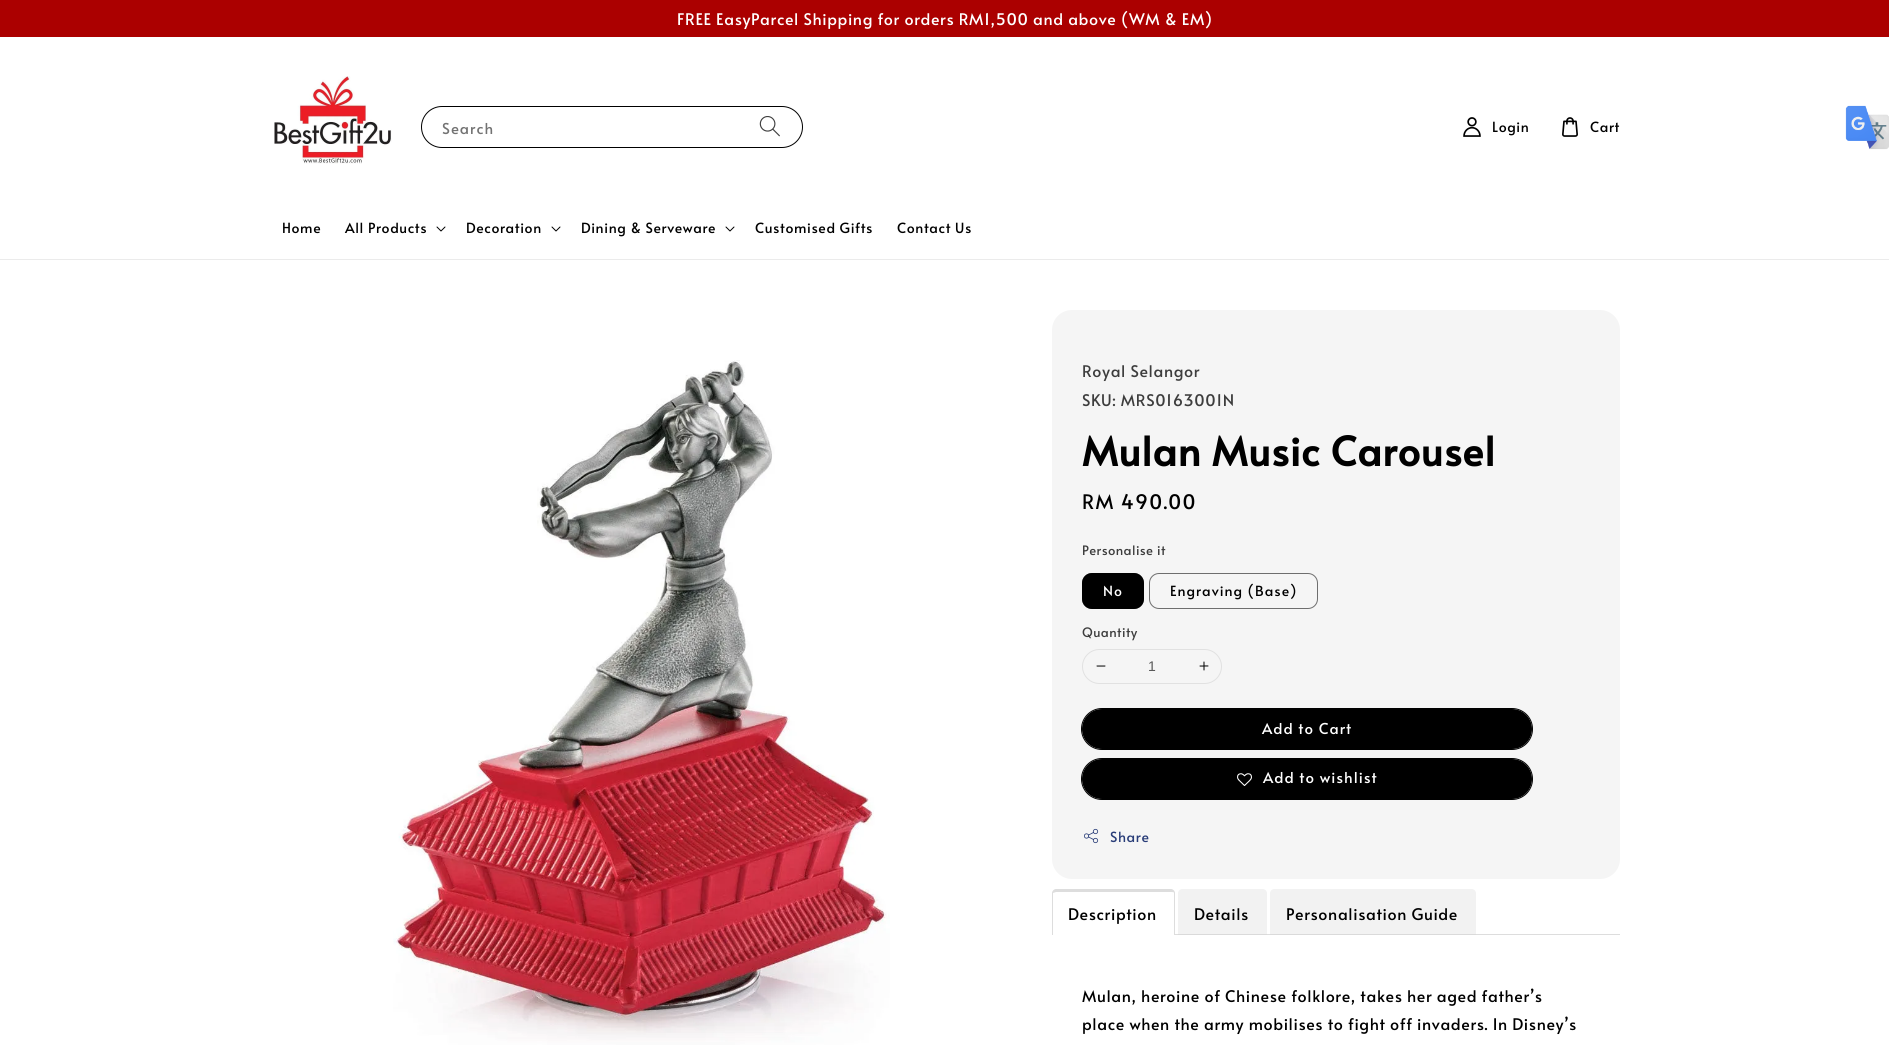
import math
import cairo


def use_color(cr, r, g, b):
  cr.set_source_rgb(r / 255, g / 255, b / 255)

def text(cr, x, y, s, family, size, color, bold=False, italic=False):
  cr.select_font_face(family, cairo.FONT_SLANT_ITALIC if italic else cairo.FONT_SLANT_NORMAL, cairo.FONT_WEIGHT_BOLD if bold else cairo.FONT_WEIGHT_NORMAL)
  cr.set_font_size(size)
  use_color(cr, *color)
  cr.move_to(x, y)
  cr.show_text(s)

def spaced_text(cr, x, y, s, letter, word):
  cr.move_to(x, y)
  for ch in s:
    cr.show_text(ch)
    cr.rel_move_to(letter + word * (ch == ' '), 0)

def box(cr, x, y, w, h, *color):
  use_color(cr, *color)
  cr.rectangle(x, y, w, h)
  cr.fill()

def round_rect(cr, x, y, w, h, r):
  cr.new_sub_path()
  for i, (u, v) in enumerate([(x + w - r, y + h - r), (x + r, y + h - r), (x + r, y + r), (x + w - r, y + r)]):
    cr.arc(u, v, r, i * math.pi / 2, (i + 1) * math.pi / 2)
  cr.close_path()

def picture(cr, path, x, y, w, h):
  cr.save()
  cr.set_source_surface(cairo.ImageSurface.create_from_png(path), x, y)
  cr.rectangle(x, y, w, h)
  cr.fill()
  cr.restore()

def draw(cr):
  use_color(cr, 255, 255, 255)
  cr.paint()
  box(cr, 0, 0, 1889, 37, 171, 0, 0)
  box(cr, 0, 259, 1889, 1, 235, 235, 235)
  picture(cr, "img_01.png", 274, 76, 118, 88)
  round_rect(cr, 421.5, 106.5, 381, 41, 20.5)
  use_color(cr, 0, 0, 0)
  cr.set_line_width(1)
  cr.stroke()
  picture(cr, "img_02.png", 759, 116, 21, 21)
  picture(cr, "img_03.png", 1463, 117, 18, 20)
  picture(cr, "img_04.png", 1562, 117, 16, 20)
  picture(cr, "img_05.png", 436, 226, 10, 6)
  picture(cr, "img_05.png", 551, 226, 10, 6)
  picture(cr, "img_05.png", 725, 226, 10, 6)
  picture(cr, "img_06.png", 1845, 105, 44, 45)
  picture(cr, "img_07.png", 393, 360, 497, 685)
  use_color(cr, 245, 245, 245)
  round_rect(cr, 1052, 310, 568, 569, 20)
  cr.fill()
  use_color(cr, 0, 0, 0)
  round_rect(cr, 1082, 573, 62, 36, 10)
  cr.fill()
  round_rect(cr, 1082.5, 573.5, 61, 35, 9.5)
  cr.set_source_rgba(0, 0, 0, 0.55)
  cr.stroke()
  round_rect(cr, 1149.5, 573.5, 168, 35, 9.5)
  use_color(cr, 110, 110, 110)
  cr.stroke()
  round_rect(cr, 1082.5, 649.5, 139, 34, 17)
  use_color(cr, 225, 225, 225)
  cr.stroke()
  picture(cr, "img_08.png", 1096, 665, 10, 2)
  picture(cr, "img_09.png", 1199, 661, 10, 10)
  round_rect(cr, 1081.5, 708.5, 451, 41, 20.5)
  use_color(cr, 0, 0, 0)
  cr.stroke()
  round_rect(cr, 1082, 709, 450, 40, 20)
  cr.fill()
  round_rect(cr, 1081.5, 758.5, 451, 41, 20.5)
  cr.stroke()
  round_rect(cr, 1082, 759, 450, 40, 20)
  cr.fill()
  picture(cr, "img_10.png", 1237, 773, 15, 13)
  picture(cr, "img_11.png", 1084, 828, 15, 16)
  box(cr, 1175, 934, 445, 1, 221, 221, 221)
  cr.set_fill_rule(cairo.FILL_RULE_EVEN_ODD)
  cr.new_path()
  cr.move_to(1056, 889)
  cr.line_to(1171, 889)
  cr.curve_to(1173, 889, 1175, 891, 1175, 893)
  cr.line_to(1175, 935)
  cr.line_to(1052, 935)
  cr.line_to(1052, 893)
  cr.curve_to(1052, 891, 1054, 889, 1056, 889)
  cr.close_path()
  cr.move_to(1056, 892)
  cr.line_to(1171, 892)
  cr.curve_to(1173, 892, 1174, 892, 1174, 893)
  cr.line_to(1174, 935)
  cr.line_to(1053, 935)
  cr.line_to(1053, 893)
  cr.close_path()
  cr.fill()
  cr.set_source_rgba(0.831, 0.831, 0.831, 0.3)
  cr.new_path()
  cr.move_to(1182, 889)
  cr.line_to(1263, 889)
  cr.curve_to(1265, 889, 1267, 891, 1267, 893)
  cr.line_to(1267, 935)
  cr.line_to(1178, 935)
  cr.line_to(1178, 893)
  cr.curve_to(1178, 891, 1180, 889, 1182, 889)
  cr.close_path()
  cr.fill()
  cr.new_path()
  cr.move_to(1274, 889)
  cr.line_to(1472, 889)
  cr.curve_to(1474, 889, 1476, 891, 1476, 893)
  cr.line_to(1476, 935)
  cr.line_to(1270, 935)
  cr.line_to(1270, 893)
  cr.curve_to(1270, 891, 1272, 889, 1274, 889)
  cr.close_path()
  cr.fill()
  cr.select_font_face("Alata")
  cr.set_font_size(16)
  use_color(cr, 255, 255, 255)
  spaced_text(cr, 677, 25, "FREE EasyParcel Shipping for orders RM1,500 and above (WM & EM)", 0.6, 0)
  cr.set_font_size(15)
  use_color(cr, 115, 115, 115)
  spaced_text(cr, 442, 134, "Search", 1, 0)
  cr.set_font_size(14)
  use_color(cr, 0, 0, 0)
  spaced_text(cr, 1492, 132, "Login", 0.6, 0)
  spaced_text(cr, 1590, 132, "Cart", 0.6, 0)
  spaced_text(cr, 282, 233, "Home", 0.6, 0)
  spaced_text(cr, 345, 233, "All Products", 0.6, 0)
  spaced_text(cr, 466, 233, "Decoration", 0.6, 0)
  spaced_text(cr, 581, 233, "Dining & Serveware", 0.6, 0)
  spaced_text(cr, 755, 233, "Customised Gifts", 0.6, 0)
  spaced_text(cr, 897, 233, "Contact Us", 0.6, 0)
  cr.set_font_size(16)
  use_color(cr, 61, 61, 61)
  spaced_text(cr, 1082, 377, "Royal Selangor", 0.6, 0)
  spaced_text(cr, 1082, 406, "SKU: MRS0163001N", 0.6, 0)
  cr.select_font_face("Alata", cairo.FONT_SLANT_NORMAL, cairo.FONT_WEIGHT_BOLD)
  cr.set_font_size(40)
  use_color(cr, 0, 0, 0)
  spaced_text(cr, 1082, 466, "Mulan Music Carousel", 0.6, 0)
  cr.select_font_face("Alata")
  cr.set_font_size(20)
  spaced_text(cr, 1082, 509, "RM 490.00", 1.25, 0)
  cr.set_font_size(13)
  use_color(cr, 61, 61, 61)
  spaced_text(cr, 1082, 555, "Personalise it", 0.4, 0)
  cr.set_font_size(14)
  use_color(cr, 255, 255, 255)
  spaced_text(cr, 1103, 596, "No", 1, 0)
  use_color(cr, 0, 0, 0)
  spaced_text(cr, 1170, 596, "Engraving (Base)", 1, 0)
  cr.set_font_size(13)
  use_color(cr, 61, 61, 61)
  spaced_text(cr, 1082, 637, "Quantity", 0.4, 0)
  text(cr, 1148, 671, "1", "Liberation Sans", 14, (89, 89, 89))
  cr.select_font_face("Alata")
  cr.set_font_size(15)
  use_color(cr, 255, 255, 255)
  spaced_text(cr, 1262, 734, "Add to Cart", 1, 0)
  spaced_text(cr, 1263, 783, "Add to wishlist", 1, 0)
  cr.set_font_size(14)
  use_color(cr, 41, 61, 120)
  spaced_text(cr, 1110, 842, "Share", 0.6, 0)
  cr.set_font_size(16)
  use_color(cr, 0, 0, 0)
  spaced_text(cr, 1068, 920, "Description", 0.6, 0)
  spaced_text(cr, 1194, 920, "Details", 0.6, 0)
  spaced_text(cr, 1286, 920, "Personalisation Guide", 0.6, 0)
  spaced_text(cr, 1082, 1002, "Mulan, heroine of Chinese folklore, takes her aged father’s", 0.6, 0)
  spaced_text(cr, 1082, 1030, "place when the army mobilises to fight off invaders. In Disney’s", 0.6, 0)


surface = cairo.ImageSurface(cairo.FORMAT_RGB24, 1889, 1046)
cr = cairo.Context(surface)
options = cairo.FontOptions()
options.set_hint_metrics(cairo.HINT_METRICS_OFF)
options.set_hint_style(cairo.HINT_STYLE_NONE)
cr.set_font_options(options)
cr.set_miter_limit(4)
draw(cr)
surface.write_to_png("out.png")
